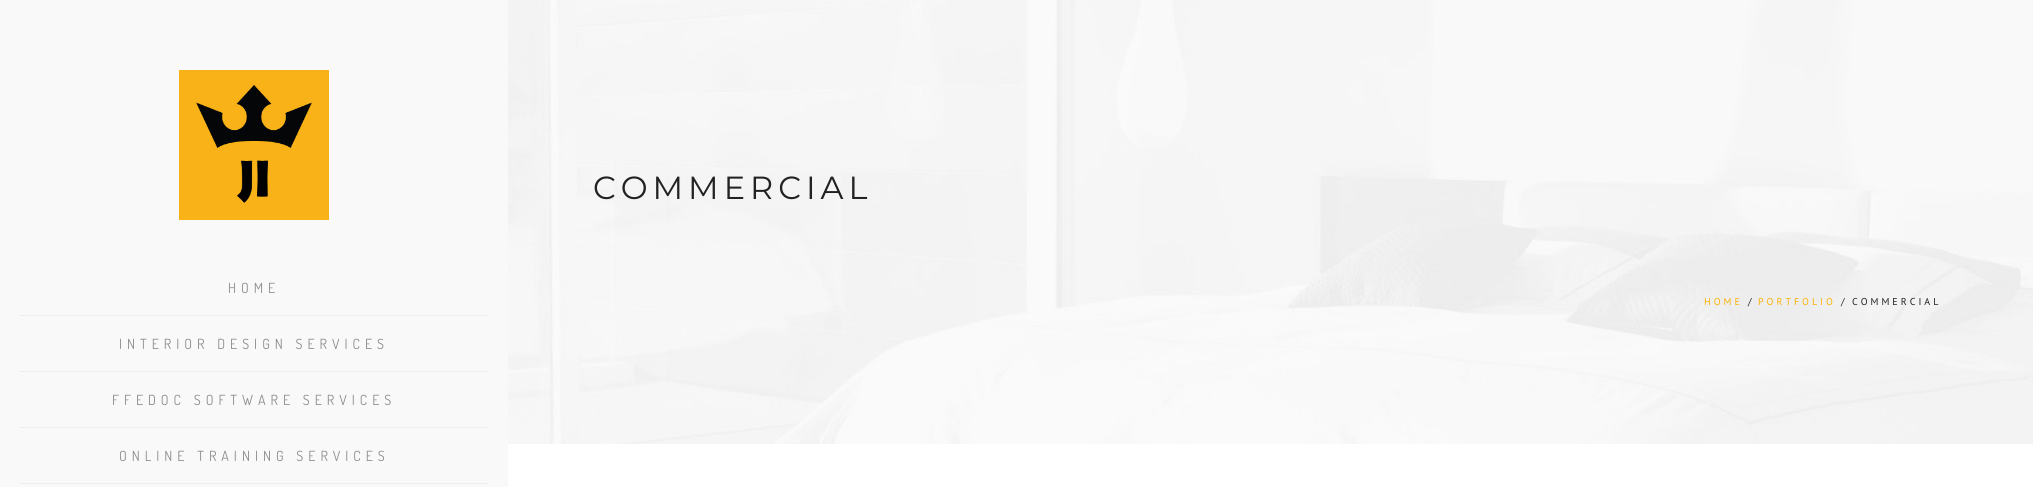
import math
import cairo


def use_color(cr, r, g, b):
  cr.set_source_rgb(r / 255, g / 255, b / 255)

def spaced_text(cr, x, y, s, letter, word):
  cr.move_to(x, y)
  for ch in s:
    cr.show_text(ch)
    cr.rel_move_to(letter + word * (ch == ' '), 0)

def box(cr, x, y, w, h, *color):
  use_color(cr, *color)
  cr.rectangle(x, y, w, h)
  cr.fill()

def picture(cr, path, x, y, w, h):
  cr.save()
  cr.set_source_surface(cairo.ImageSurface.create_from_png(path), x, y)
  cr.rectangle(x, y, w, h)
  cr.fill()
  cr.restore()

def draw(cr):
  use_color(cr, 249, 249, 249)
  cr.paint()
  picture(cr, "img_01.png", 508, 0, 1525, 444)
  box(cr, 508, 444, 1525, 43, 255, 255, 255)
  picture(cr, "img_02.png", 179, 70, 150, 150)
  box(cr, 20, 315, 468, 1, 237, 237, 237)
  box(cr, 20, 371, 468, 1, 237, 237, 237)
  box(cr, 20, 427, 468, 1, 237, 237, 237)
  box(cr, 20, 483, 468, 1, 237, 237, 237)
  cr.select_font_face("Montserrat")
  cr.set_font_size(32)
  use_color(cr, 34, 34, 34)
  spaced_text(cr, 593, 199, "COMMERCIAL", 5, 0)
  cr.select_font_face("PT Sans")
  cr.set_font_size(10)
  use_color(cr, 250, 178, 7)
  spaced_text(cr, 1704, 305, "HOME", 3, 0)
  use_color(cr, 34, 34, 34)
  spaced_text(cr, 1748, 305, "/", 3, 0)
  use_color(cr, 250, 178, 7)
  spaced_text(cr, 1758, 305, "PORTFOLIO", 3, 0)
  use_color(cr, 34, 34, 34)
  spaced_text(cr, 1841, 305, "/", 3, 0)
  spaced_text(cr, 1852, 305, "COMMERCIAL", 3, 0)
  cr.select_font_face("Dosis")
  cr.set_font_size(14)
  use_color(cr, 142, 142, 142)
  spaced_text(cr, 228, 293, "HOME", 5, 0)
  spaced_text(cr, 119, 349, "INTERIOR DESIGN SERVICES", 5, 0)
  spaced_text(cr, 112, 405, "FFEDOC SOFTWARE SERVICES", 5, 0)
  spaced_text(cr, 119, 461, "ONLINE TRAINING SERVICES", 5, 0)


surface = cairo.ImageSurface(cairo.FORMAT_RGB24, 2033, 487)
cr = cairo.Context(surface)
options = cairo.FontOptions()
options.set_hint_metrics(cairo.HINT_METRICS_OFF)
options.set_hint_style(cairo.HINT_STYLE_NONE)
cr.set_font_options(options)
cr.set_miter_limit(4)
draw(cr)
surface.write_to_png("out.png")
